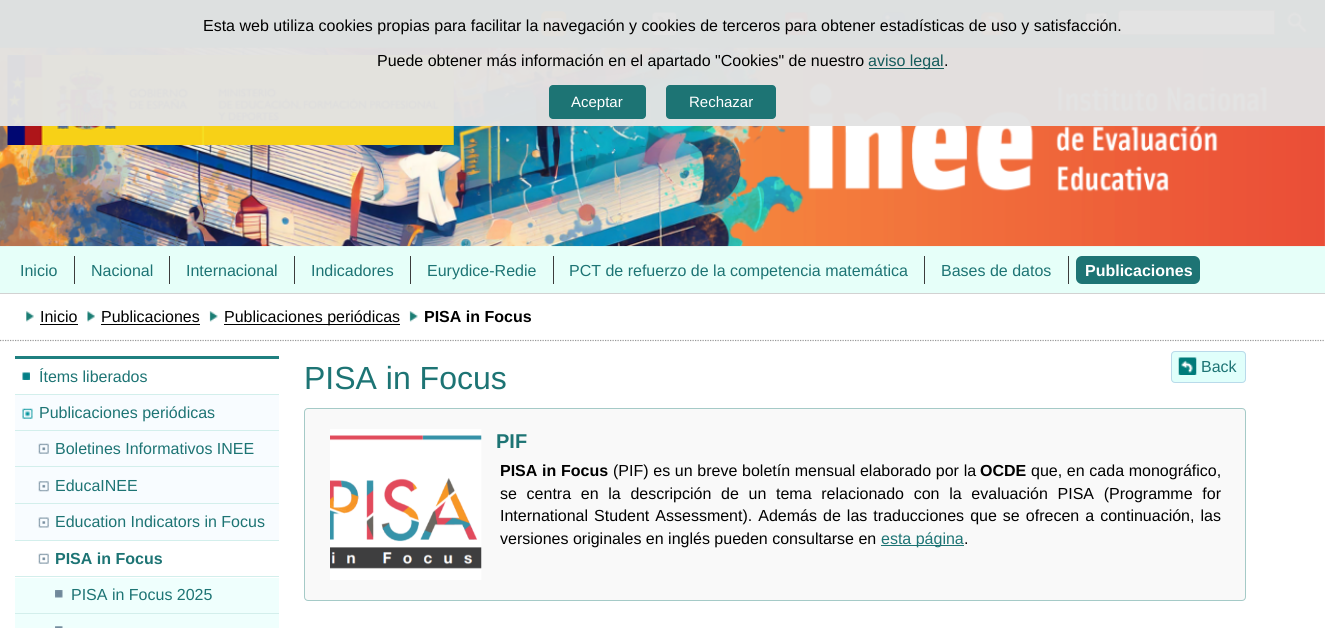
import math
import cairo


def use_color(cr, r, g, b):
  cr.set_source_rgb(r / 255, g / 255, b / 255)

def text(cr, x, y, s, family, size, color, bold=False, italic=False):
  cr.select_font_face(family, cairo.FONT_SLANT_ITALIC if italic else cairo.FONT_SLANT_NORMAL, cairo.FONT_WEIGHT_BOLD if bold else cairo.FONT_WEIGHT_NORMAL)
  cr.set_font_size(size)
  use_color(cr, *color)
  cr.move_to(x, y)
  cr.show_text(s)

def spaced_text(cr, x, y, s, letter, word):
  cr.move_to(x, y)
  for ch in s:
    cr.show_text(ch)
    cr.rel_move_to(letter + word * (ch == ' '), 0)

def box(cr, x, y, w, h, *color):
  use_color(cr, *color)
  cr.rectangle(x, y, w, h)
  cr.fill()

def round_rect(cr, x, y, w, h, r):
  cr.new_sub_path()
  for i, (u, v) in enumerate([(x + w - r, y + h - r), (x + r, y + h - r), (x + r, y + r), (x + w - r, y + r)]):
    cr.arc(u, v, r, i * math.pi / 2, (i + 1) * math.pi / 2)
  cr.close_path()

def picture(cr, path, x, y, w, h):
  cr.save()
  cr.set_source_surface(cairo.ImageSurface.create_from_png(path), x, y)
  cr.rectangle(x, y, w, h)
  cr.fill()
  cr.restore()

def draw(cr):
  use_color(cr, 255, 255, 255)
  cr.paint()
  box(cr, 0, 0, 1325, 48, 31, 128, 128)
  picture(cr, "img_01.png", 541, 11, 26, 26)
  picture(cr, "img_02.png", 652, 12, 25, 23)
  picture(cr, "img_03.png", 785, 12, 23, 23)
  picture(cr, "img_04.png", 882, 12, 23, 23)
  picture(cr, "img_05.png", 981, 12, 23, 23)
  picture(cr, "img_06.png", 1085, 12, 23, 23)
  use_color(cr, 255, 255, 255)
  cr.new_path()
  cr.move_to(1122, 10.5)
  cr.line_to(1274.5, 10.5)
  cr.line_to(1274.5, 34.5)
  cr.line_to(1122, 34.5)
  cr.curve_to(1120, 34.5, 1118.5, 33, 1118.5, 31)
  cr.line_to(1118.5, 14)
  cr.curve_to(1118.5, 12, 1120, 10.5, 1122, 10.5)
  cr.close_path()
  cr.fill_preserve()
  use_color(cr, 152, 152, 152)
  cr.set_line_width(1)
  cr.stroke()
  picture(cr, "img_07.png", 1287, 12, 21, 21)
  box(cr, 0, 246, 1325, 47, 230, 255, 249)
  picture(cr, "img_08.png", 0, 47, 1325, 200)
  picture(cr, "img_09.png", 7, 55, 447, 90)
  cr.set_source_rgba(0.886, 0.886, 0.886, 0.97)
  cr.rectangle(0, 0, 1325, 126)
  cr.fill()
  box(cr, 869, 68, 75, 1, 21, 91, 91)
  use_color(cr, 29, 116, 116)
  round_rect(cr, 549, 85, 97, 34, 4)
  cr.fill()
  round_rect(cr, 666, 85, 110, 34, 4)
  cr.fill()
  box(cr, 0, 293, 1325, 1, 210, 210, 210)
  box(cr, 74, 256, 1, 28, 60, 60, 60)
  box(cr, 169, 256, 1, 28, 60, 60, 60)
  box(cr, 294, 256, 1, 28, 60, 60, 60)
  box(cr, 410, 256, 1, 28, 60, 60, 60)
  box(cr, 553, 256, 1, 28, 60, 60, 60)
  box(cr, 924, 256, 1, 28, 60, 60, 60)
  box(cr, 1068, 256, 1, 28, 60, 60, 60)
  use_color(cr, 29, 116, 116)
  round_rect(cr, 1076, 256, 124, 28, 6)
  cr.fill()
  cr.new_path()
  cr.move_to(0, 340.5)
  cr.line_to(1325, 340.5)
  use_color(cr, 153, 153, 153)
  cr.set_line_width(1.2)
  cr.set_dash([1.25, 1.25])
  cr.stroke()
  picture(cr, "img_10.png", 26, 311, 8, 11)
  box(cr, 40, 324, 38, 1, 0, 0, 0)
  picture(cr, "img_11.png", 87, 311, 8, 11)
  box(cr, 101, 324, 99, 1, 0, 0, 0)
  picture(cr, "img_12.png", 209, 311, 9, 11)
  box(cr, 224, 324, 176, 1, 0, 0, 0)
  picture(cr, "img_13.png", 409, 311, 9, 11)
  box(cr, 15, 356, 264, 3, 31, 128, 128)
  picture(cr, "img_14.png", 22, 372, 8, 8)
  box(cr, 15, 394, 264, 1, 211, 239, 236)
  box(cr, 15, 395, 264, 145, 248, 252, 255)
  picture(cr, "img_15.png", 22, 408, 11, 11)
  box(cr, 15, 430, 264, 1, 211, 239, 236)
  picture(cr, "img_16.png", 38, 443, 11, 11)
  box(cr, 15, 466, 264, 1, 211, 239, 236)
  picture(cr, "img_17.png", 38, 481, 11, 11)
  box(cr, 15, 503, 264, 1, 211, 239, 236)
  picture(cr, "img_18.png", 38, 517, 11, 11)
  box(cr, 15, 540, 264, 1, 211, 239, 236)
  picture(cr, "img_19.png", 38, 553, 11, 11)
  box(cr, 15, 576, 264, 1, 211, 239, 236)
  box(cr, 15, 578, 264, 35, 239, 255, 253)
  picture(cr, "img_20.png", 55, 590, 8, 8)
  box(cr, 15, 613, 264, 1, 211, 239, 236)
  box(cr, 15, 614, 264, 14, 239, 255, 253)
  picture(cr, "img_21.png", 55, 626, 8, 2)
  use_color(cr, 224, 255, 251)
  round_rect(cr, 1171, 351, 75, 32, 4)
  cr.fill()
  picture(cr, "img_22.png", 1178, 357, 19, 18)
  round_rect(cr, 1171.5, 351.5, 74, 31, 3.5)
  use_color(cr, 185, 218, 234)
  cr.set_line_width(1)
  cr.set_dash([])
  cr.stroke()
  use_color(cr, 249, 249, 249)
  round_rect(cr, 304.5, 408.5, 941, 192, 3.5)
  cr.fill_preserve()
  use_color(cr, 165, 202, 199)
  cr.stroke()
  picture(cr, "img_23.png", 330, 429, 152, 151)
  box(cr, 881, 545, 83, 1, 29, 116, 116)
  text(cr, 203, 31, "Esta web utiliza cookies propias para facilitar la navegación y cookies de terceros para obtener estadísticas de uso y satisfacción.", "Liberation Sans", 16, (0, 0, 0))
  text(cr, 377, 66, "Puede obtener más información en el apartado \"Cookies\" de nuestro", "Liberation Sans", 16, (0, 0, 0))
  text(cr, 868, 66, "aviso legal", "Liberation Sans", 16, (21, 91, 91))
  text(cr, 944, 66, ".", "Liberation Sans", 16, (0, 0, 0))
  text(cr, 571, 107, "Aceptar", "Liberation Sans", 15, (255, 255, 255))
  text(cr, 689, 107, "Rechazar", "Liberation Sans", 15, (255, 255, 255))
  text(cr, 20, 276, "Inicio", "Liberation Sans", 16, (29, 116, 116))
  text(cr, 91, 276, "Nacional", "Liberation Sans", 16, (29, 116, 116))
  text(cr, 186, 276, "Internacional", "Liberation Sans", 16, (29, 116, 116))
  text(cr, 311, 276, "Indicadores", "Liberation Sans", 16, (29, 116, 116))
  text(cr, 427, 276, "Eurydice-Redie", "Liberation Sans", 16, (29, 116, 116))
  text(cr, 569, 276, "PCT de refuerzo de la competencia matemática", "Liberation Sans", 16, (29, 116, 116))
  text(cr, 941, 276, "Bases de datos", "Liberation Sans", 16, (29, 116, 116))
  text(cr, 1085, 276, "Publicaciones", "Liberation Sans", 16, (255, 255, 255), bold=True)
  text(cr, 40, 322, "Inicio", "Liberation Sans", 16, (0, 0, 0))
  text(cr, 101, 322, "Publicaciones", "Liberation Sans", 16, (0, 0, 0))
  text(cr, 224, 322, "Publicaciones periódicas", "Liberation Sans", 16, (0, 0, 0))
  text(cr, 424, 322, "PISA in Focus", "Liberation Sans", 16, (0, 0, 0), bold=True)
  text(cr, 39, 382, "Ítems liberados", "Liberation Sans", 16, (29, 116, 116))
  text(cr, 39, 418, "Publicaciones periódicas", "Liberation Sans", 16, (29, 116, 116))
  text(cr, 55, 454, "Boletines Informativos INEE", "Liberation Sans", 16, (29, 116, 116))
  text(cr, 55, 491, "EducaINEE", "Liberation Sans", 16, (29, 116, 116))
  text(cr, 55, 527, "Education Indicators in Focus", "Liberation Sans", 16, (29, 116, 116))
  text(cr, 55, 564, "PISA in Focus", "Liberation Sans", 16, (29, 116, 116), bold=True)
  text(cr, 71, 600, "PISA in Focus 2025", "Liberation Sans", 16, (29, 116, 116))
  text(cr, 304, 389, "PISA in Focus", "Liberation Sans", 32, (29, 116, 116))
  text(cr, 1201, 372, "Back", "Liberation Sans", 16, (29, 116, 116))
  text(cr, 496, 448, "PIF", "Liberation Sans", 20, (29, 116, 116), bold=True)
  cr.set_font_size(16)
  use_color(cr, 0, 0, 0)
  spaced_text(cr, 500, 476, "PISA in Focus", 0, 0.25)
  cr.select_font_face("Liberation Sans")
  spaced_text(cr, 613, 476, "(PIF) es un breve boletín mensual elaborado por la", 0, 0.25)
  text(cr, 980, 476, "OCDE", "Liberation Sans", 16, (0, 0, 0), bold=True)
  cr.select_font_face("Liberation Sans")
  spaced_text(cr, 1031, 476, "que, en cada monográfico,", 0, 0.25)
  spaced_text(cr, 500, 499, "se centra en la descripción de un tema relacionado con la evaluación PISA (Programme for", 0, 5.25)
  spaced_text(cr, 500, 521, "International Student Assessment). Además de las traducciones que se ofrecen a continuación, las", 0, 1.6)
  text(cr, 500, 544, "versiones originales en inglés pueden consultarse en", "Liberation Sans", 16, (0, 0, 0))
  text(cr, 881, 544, "esta página", "Liberation Sans", 16, (29, 116, 116))
  text(cr, 964, 544, ".", "Liberation Sans", 16, (0, 0, 0))


surface = cairo.ImageSurface(cairo.FORMAT_RGB24, 1325, 628)
cr = cairo.Context(surface)
options = cairo.FontOptions()
options.set_hint_metrics(cairo.HINT_METRICS_OFF)
options.set_hint_style(cairo.HINT_STYLE_NONE)
cr.set_font_options(options)
cr.set_miter_limit(4)
draw(cr)
surface.write_to_png("out.png")
